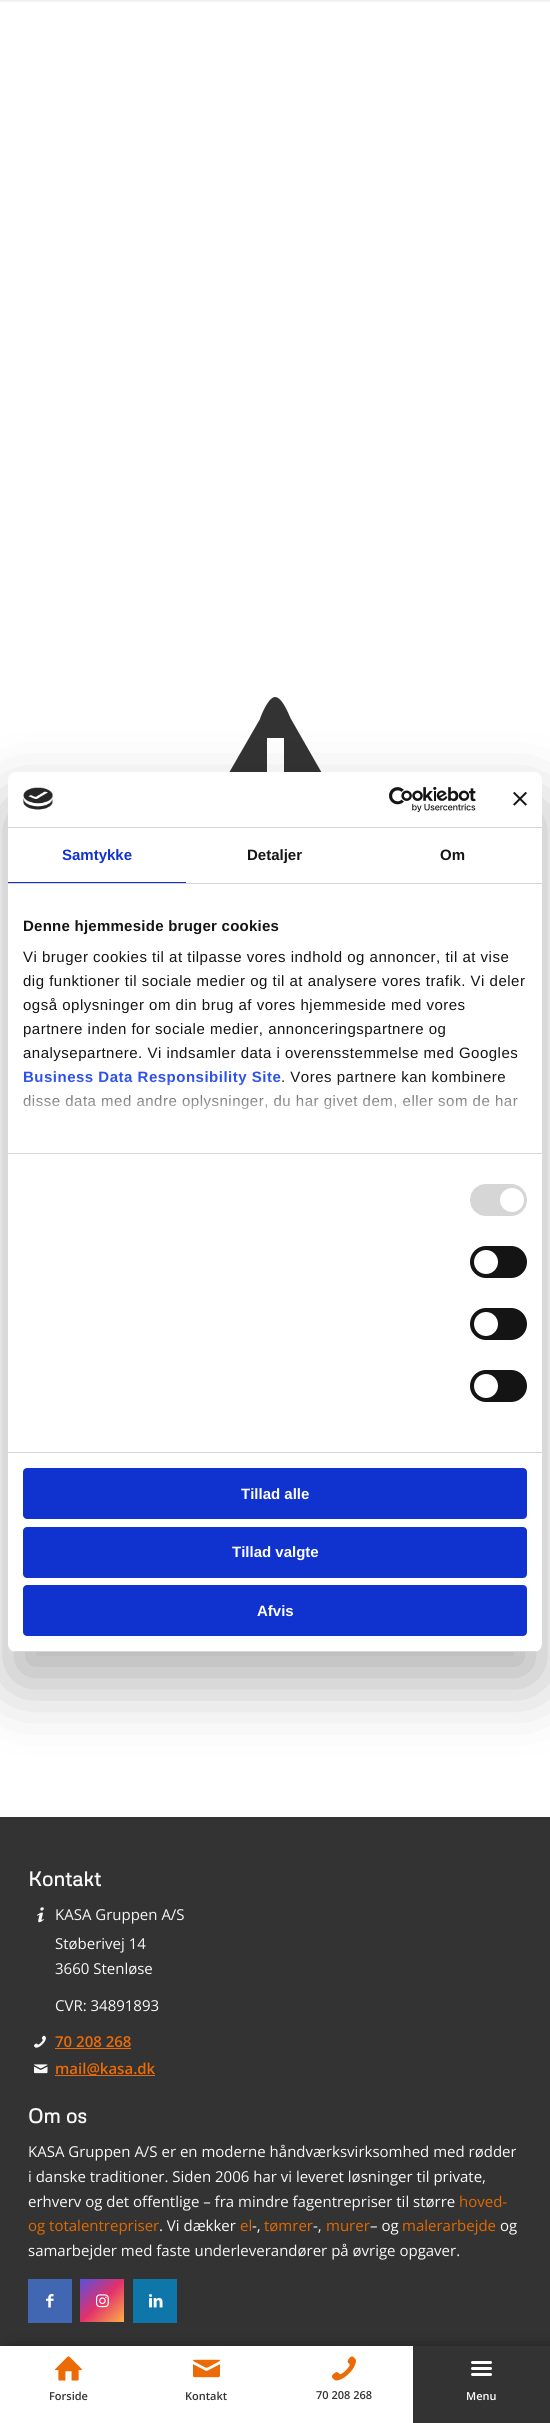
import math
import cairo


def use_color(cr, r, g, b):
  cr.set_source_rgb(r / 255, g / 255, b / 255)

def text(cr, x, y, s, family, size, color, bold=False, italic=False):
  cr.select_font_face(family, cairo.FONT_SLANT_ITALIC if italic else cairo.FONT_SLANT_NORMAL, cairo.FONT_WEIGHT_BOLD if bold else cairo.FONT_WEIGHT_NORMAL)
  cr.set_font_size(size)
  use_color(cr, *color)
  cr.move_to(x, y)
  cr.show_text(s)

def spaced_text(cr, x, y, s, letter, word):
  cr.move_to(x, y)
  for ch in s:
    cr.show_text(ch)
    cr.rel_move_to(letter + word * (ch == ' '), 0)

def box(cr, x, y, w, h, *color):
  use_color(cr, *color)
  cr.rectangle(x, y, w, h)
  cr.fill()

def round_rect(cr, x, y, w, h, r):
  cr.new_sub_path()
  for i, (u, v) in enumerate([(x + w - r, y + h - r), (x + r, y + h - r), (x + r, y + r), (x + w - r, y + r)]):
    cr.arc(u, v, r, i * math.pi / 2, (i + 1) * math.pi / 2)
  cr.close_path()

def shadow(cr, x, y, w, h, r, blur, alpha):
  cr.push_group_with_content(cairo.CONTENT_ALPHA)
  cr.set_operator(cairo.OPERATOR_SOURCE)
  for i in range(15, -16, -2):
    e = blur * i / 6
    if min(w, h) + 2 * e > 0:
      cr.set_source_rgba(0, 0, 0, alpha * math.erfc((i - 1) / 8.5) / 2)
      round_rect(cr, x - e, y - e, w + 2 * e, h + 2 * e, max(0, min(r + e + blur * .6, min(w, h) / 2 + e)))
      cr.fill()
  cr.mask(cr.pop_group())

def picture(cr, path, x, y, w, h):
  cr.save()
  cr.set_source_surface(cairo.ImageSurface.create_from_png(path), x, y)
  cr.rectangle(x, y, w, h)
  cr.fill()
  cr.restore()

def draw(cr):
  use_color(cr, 255, 255, 255)
  cr.paint()
  use_color(cr, 51, 51, 51)
  cr.new_path()
  cr.move_to(347, 817)
  cr.curve_to(347, 818, 348, 819, 347, 821)
  cr.curve_to(344, 828, 324, 824, 320, 824)
  cr.line_to(208, 824)
  cr.curve_to(205, 824, 203, 821, 203, 818)
  cr.line_to(260, 719)
  cr.curve_to(260, 718, 268, 697, 275, 697)
  cr.curve_to(283, 697, 290, 718, 291, 719)
  cr.close_path()
  cr.move_to(284, 809)
  cr.line_to(284, 794)
  cr.line_to(267, 794)
  cr.line_to(267, 809)
  cr.close_path()
  cr.move_to(284, 783)
  cr.line_to(284, 738)
  cr.line_to(267, 738)
  cr.line_to(267, 783)
  cr.close_path()
  cr.fill()
  use_color(cr, 0, 0, 0)
  shadow(cr, 8, 804, 534, 880, 8, 34, 0.3)
  use_color(cr, 255, 255, 255)
  round_rect(cr, 8, 772, 534, 880, 8)
  cr.fill()
  box(cr, 8, 827, 534, 1, 214, 214, 214)
  picture(cr, "img_01.png", 23, 787, 30, 23)
  picture(cr, "img_02.png", 389, 787, 87, 25)
  picture(cr, "img_03.png", 513, 792, 14, 14)
  box(cr, 8, 883, 534, 1, 214, 214, 214)
  box(cr, 8, 882, 178, 1, 16, 50, 207)
  box(cr, 8, 1153, 534, 1, 214, 214, 214)
  box(cr, 8, 1452, 534, 1, 214, 214, 214)
  round_rect(cr, 470, 1184, 57, 32, 16)
  cr.fill()
  use_color(cr, 255, 255, 255)
  cr.arc(512, 1200, 12, 0, 2 * math.pi)
  cr.fill()
  use_color(cr, 20, 20, 20)
  round_rect(cr, 470, 1246, 57, 32, 16)
  cr.fill()
  use_color(cr, 255, 255, 255)
  cr.arc(486, 1262, 12, 0, 2 * math.pi)
  cr.fill()
  use_color(cr, 20, 20, 20)
  round_rect(cr, 470, 1308, 57, 32, 16)
  cr.fill()
  use_color(cr, 255, 255, 255)
  cr.arc(486, 1324, 12, 0, 2 * math.pi)
  cr.fill()
  use_color(cr, 20, 20, 20)
  round_rect(cr, 470, 1370, 57, 32, 16)
  cr.fill()
  use_color(cr, 255, 255, 255)
  cr.arc(486, 1386, 12, 0, 2 * math.pi)
  cr.fill()
  cr.save()
  round_rect(cr, 8, 772, 534, 880, 8)
  cr.clip()
  box(cr, 8, 1651, 534, 1, 214, 214, 214)
  cr.restore()
  use_color(cr, 16, 50, 207)
  round_rect(cr, 24, 1469, 502, 49, 3)
  cr.fill_preserve()
  cr.stroke()
  round_rect(cr, 24, 1528, 502, 49, 3)
  cr.fill_preserve()
  cr.stroke()
  round_rect(cr, 24, 1586, 502, 49, 3)
  cr.fill_preserve()
  cr.stroke()
  use_color(cr, 0, 0, 0)
  shadow(cr, -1, -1, 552, 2, 0, 1, 0.1)
  box(cr, 0, 1817, 550, 529, 51, 51, 51)
  picture(cr, "img_04.png", 37, 1907, 7, 16)
  picture(cr, "img_05.png", 34, 2035, 12, 13)
  box(cr, 55, 2048, 76, 1, 237, 107, 6)
  picture(cr, "img_06.png", 34, 2064, 14, 10)
  box(cr, 55, 2075, 100, 1, 237, 107, 6)
  box(cr, 28, 2279, 44, 44, 66, 103, 178)
  picture(cr, "img_07.png", 46, 2294, 8, 14)
  gradient = cairo.LinearGradient(81, 2279, 123, 2322)
  gradient.add_color_stop_rgba(0, 0.345, 0.318, 0.859, 1)
  gradient.add_color_stop_rgba(0.5, 0.882, 0.188, 0.424, 1)
  gradient.add_color_stop_rgba(1, 0.988, 0.686, 0.271, 1)
  cr.set_source(gradient)
  cr.rectangle(80, 2279, 44, 43)
  cr.fill()
  picture(cr, "img_08.png", 96, 2294, 13, 14)
  box(cr, 133, 2279, 44, 44, 14, 118, 168)
  picture(cr, "img_09.png", 149, 2294, 14, 14)
  use_color(cr, 0, 0, 0)
  shadow(cr, 10, 2356, 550, 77, 0, 10, 1)
  box(cr, 413, 2346, 137, 77, 51, 51, 51)
  box(cr, 0, 2346, 413, 77, 255, 255, 255)
  picture(cr, "img_10.png", 55, 2356, 27, 25)
  picture(cr, "img_11.png", 193, 2359, 27, 19)
  picture(cr, "img_12.png", 332, 2356, 24, 25)
  picture(cr, "img_13.png", 471, 2361, 21, 15)
  text(cr, 62, 860, "Samtykke", "Liberation Sans", 15, (16, 50, 207), bold=True)
  text(cr, 247, 860, "Detaljer", "Liberation Sans", 15, (20, 20, 20), bold=True)
  text(cr, 440, 860, "Om", "Liberation Sans", 15, (20, 20, 20), bold=True)
  spaced_text(cr, 23, 931, "Denne hjemmeside bruger cookies", 0.25, 0)
  cr.select_font_face("Liberation Sans")
  spaced_text(cr, 23, 962, "Vi bruger cookies til at tilpasse vores indhold og annoncer, til at vise", 0.5, 0)
  spaced_text(cr, 23, 986, "dig funktioner til sociale medier og til at analysere vores trafik. Vi deler", 0.5, 0)
  spaced_text(cr, 23, 1010, "også oplysninger om din brug af vores hjemmeside med vores", 0.5, 0)
  spaced_text(cr, 23, 1034, "partnere inden for sociale medier, annonceringspartnere og", 0.5, 0)
  spaced_text(cr, 23, 1058, "analysepartnere. Vi indsamler data i overensstemmelse med Googles", 0.5, 0)
  cr.select_font_face("Liberation Sans", cairo.FONT_SLANT_NORMAL, cairo.FONT_WEIGHT_BOLD)
  use_color(cr, 42, 78, 239)
  spaced_text(cr, 23, 1082, "Business Data Responsibility Site", 0.5, 0)
  cr.select_font_face("Liberation Sans")
  use_color(cr, 20, 20, 20)
  spaced_text(cr, 281, 1082, ". Vores partnere kan kombinere", 0.5, 0)
  spaced_text(cr, 23, 1106, "disse data med andre oplysninger, du har givet dem, eller som de har", 0.5, 0)
  gradient = cairo.LinearGradient(269, 1153, 269, 1078)
  gradient.add_color_stop_rgba(0, 1, 1, 1, 1)
  gradient.add_color_stop_rgba(0.5, 1, 1, 1, 0.8)
  gradient.add_color_stop_rgba(1, 1, 1, 1, 0)
  cr.set_source(gradient)
  cr.rectangle(23, 1079, 495, 31)
  cr.fill()
  text(cr, 241, 1499, "Tillad alle", "Liberation Sans", 15, (255, 255, 255), bold=True)
  text(cr, 232, 1557, "Tillad valgte", "Liberation Sans", 15, (255, 255, 255), bold=True)
  text(cr, 257, 1616, "Afvis", "Liberation Sans", 15, (255, 255, 255), bold=True)
  text(cr, 28, 1886, "Kontakt", "Metrophobic", 20, (248, 248, 248), bold=True)
  text(cr, 55, 1920, "KASA Gruppen A/S", "Open Sans", 15, (248, 248, 248))
  text(cr, 55, 1949, "Støberivej 14", "Open Sans", 15, (248, 248, 248))
  text(cr, 55, 1974, "3660 Stenløse", "Open Sans", 15, (248, 248, 248))
  text(cr, 55, 2011, "CVR: 34891893", "Open Sans", 15, (248, 248, 248))
  text(cr, 55, 2047, "70 208 268", "Open Sans SemiBold", 15, (237, 107, 6))
  text(cr, 55, 2074, "mail@kasa.dk", "Open Sans SemiBold", 15, (237, 107, 6))
  text(cr, 28, 2123, "Om os", "Metrophobic", 20, (248, 248, 248), bold=True)
  text(cr, 28, 2157, "KASA Gruppen A/S er en moderne håndværksvirksomhed med rødder", "Open Sans", 15, (248, 248, 248))
  text(cr, 28, 2182, "i danske traditioner. Siden 2006 har vi leveret løsninger til private,", "Open Sans", 15, (248, 248, 248))
  text(cr, 28, 2207, "erhverv og det offentlige – fra mindre fagentrepriser til større", "Open Sans", 15, (248, 248, 248))
  text(cr, 459, 2207, "hoved-", "Open Sans", 15, (224, 105, 0))
  text(cr, 28, 2231, "og totalentrepriser", "Open Sans", 15, (224, 105, 0))
  text(cr, 159, 2231, ". Vi dækker", "Open Sans", 15, (248, 248, 248))
  text(cr, 240, 2231, "el", "Open Sans", 15, (224, 105, 0))
  text(cr, 252, 2231, "-,", "Open Sans", 15, (248, 248, 248))
  text(cr, 264, 2231, "tømrer", "Open Sans", 15, (224, 105, 0))
  text(cr, 313, 2231, "-,", "Open Sans", 15, (248, 248, 248))
  text(cr, 326, 2231, "murer", "Open Sans", 15, (224, 105, 0))
  text(cr, 370, 2231, "– og", "Open Sans", 15, (248, 248, 248))
  text(cr, 402, 2231, "malerarbejde", "Open Sans", 15, (224, 105, 0))
  text(cr, 500, 2231, "og", "Open Sans", 15, (248, 248, 248))
  text(cr, 28, 2256, "samarbejder med faste underleverandører på øvrige opgaver.", "Open Sans", 15, (248, 248, 248))
  text(cr, 49, 2400, "Forside", "Open Sans SemiBold", 11, (51, 51, 51))
  text(cr, 185, 2400, "Kontakt", "Open Sans SemiBold", 11, (51, 51, 51))
  text(cr, 316, 2399, "70 208 268", "Open Sans SemiBold", 11, (51, 51, 51))
  text(cr, 466, 2400, "Menu", "Open Sans SemiBold", 11, (255, 255, 255))


surface = cairo.ImageSurface(cairo.FORMAT_RGB24, 550, 2423)
cr = cairo.Context(surface)
options = cairo.FontOptions()
options.set_hint_metrics(cairo.HINT_METRICS_OFF)
options.set_hint_style(cairo.HINT_STYLE_NONE)
cr.set_font_options(options)
cr.set_miter_limit(4)
draw(cr)
surface.write_to_png("out.png")
